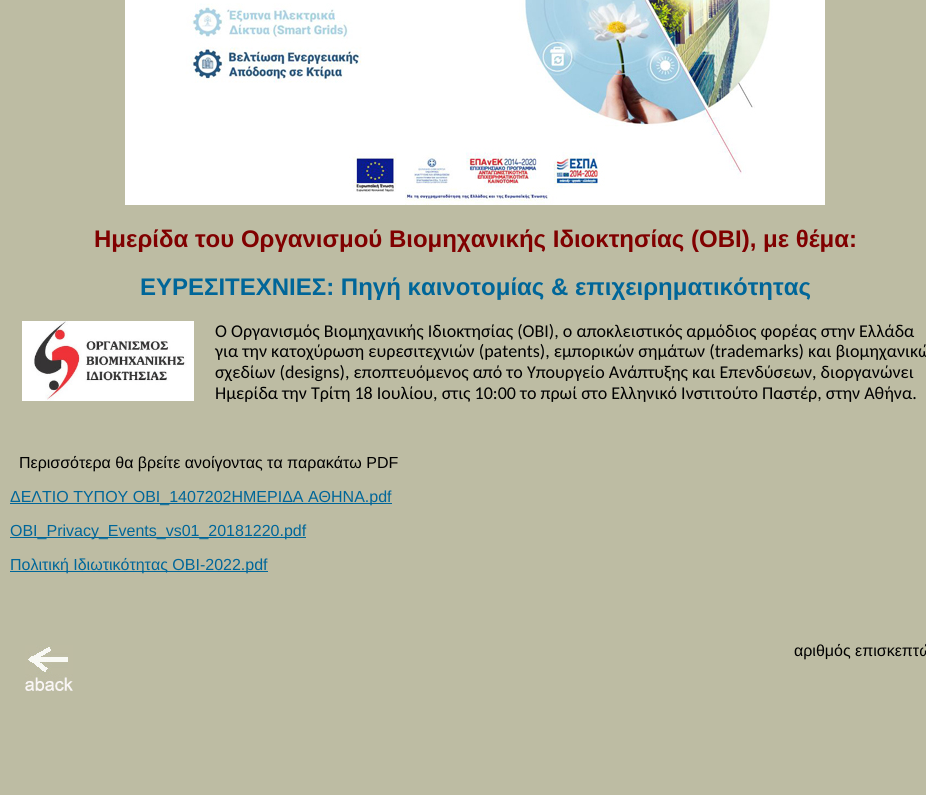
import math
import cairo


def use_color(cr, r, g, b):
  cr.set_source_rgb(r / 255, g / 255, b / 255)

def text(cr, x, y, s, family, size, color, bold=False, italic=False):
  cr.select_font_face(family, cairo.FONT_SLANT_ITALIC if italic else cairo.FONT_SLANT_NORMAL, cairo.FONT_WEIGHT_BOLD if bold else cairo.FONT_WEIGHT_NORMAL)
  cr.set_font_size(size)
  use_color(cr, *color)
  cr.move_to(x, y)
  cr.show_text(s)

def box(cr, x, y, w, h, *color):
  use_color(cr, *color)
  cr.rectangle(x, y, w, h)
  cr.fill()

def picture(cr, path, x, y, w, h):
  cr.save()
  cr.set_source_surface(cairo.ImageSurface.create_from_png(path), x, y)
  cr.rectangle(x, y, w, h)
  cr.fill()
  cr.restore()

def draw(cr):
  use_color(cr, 189, 188, 163)
  cr.paint()
  picture(cr, "img_01.png", 125, 0, 700, 205)
  picture(cr, "img_02.png", 22, 321, 172, 80)
  box(cr, 10, 503, 382, 1, 0, 102, 153)
  box(cr, 10, 537, 296, 1, 0, 102, 153)
  box(cr, 10, 571, 258, 1, 0, 102, 153)
  picture(cr, "img_03.png", 25, 645, 48, 46)
  text(cr, 94, 247, "Ημερίδα του Οργανισμού Βιομηχανικής Ιδιοκτησίας (ΟΒΙ), με θέμα:", "Liberation Sans", 24, (128, 0, 0), bold=True)
  text(cr, 140, 295, "ΕΥΡΕΣΙΤΕΧΝΙΕΣ: Πηγή καινοτομίας & επιχειρηματικότητας", "Liberation Sans", 24, (0, 102, 153), bold=True)
  text(cr, 215, 337, "Ο Οργανισμός Βιομηχανικής Ιδιοκτησίας (ΟΒΙ), ο αποκλειστικός αρμόδιος φορέας στην Ελλάδα", "Carlito", 18, (0, 0, 0))
  text(cr, 215, 357, "για την κατοχύρωση ευρεσιτεχνιών (patents), εμπορικών σημάτων (trademarks) και βιομηχανικώ", "Carlito", 18, (0, 0, 0))
  text(cr, 215, 378, "σχεδίων (designs), εποπτευόμενος από το Υπουργείο Ανάπτυξης και Επενδύσεων, διοργανώνει", "Carlito", 18, (0, 0, 0))
  text(cr, 215, 399, "Ημερίδα την Τρίτη 18 Ιουλίου, στις 10:00 το πρωί στο Ελληνικό Ινστιτούτο Παστέρ, στην Αθήνα.", "Carlito", 18, (0, 0, 0))
  text(cr, 19, 468, "Περισσότερα θα βρείτε ανοίγοντας τα παρακάτω PDF", "Liberation Sans", 16, (0, 0, 0))
  text(cr, 10, 502, "ΔΕΛΤΙΟ ΤΥΠΟΥ ΟΒΙ_1407202ΗΜΕΡΙΔΑ ΑΘΗΝΑ.pdf", "Liberation Sans", 16, (0, 102, 153))
  text(cr, 10, 536, "OBI_Privacy_Events_vs01_20181220.pdf", "Liberation Sans", 16, (0, 102, 153))
  text(cr, 10, 570, "Πολιτική Ιδιωτικότητας ΟΒΙ-2022.pdf", "Liberation Sans", 16, (0, 102, 153))
  text(cr, 794, 656, "αριθμός επισκεπτώ", "Liberation Sans", 16, (0, 0, 0))


surface = cairo.ImageSurface(cairo.FORMAT_RGB24, 926, 795)
cr = cairo.Context(surface)
options = cairo.FontOptions()
options.set_hint_metrics(cairo.HINT_METRICS_OFF)
options.set_hint_style(cairo.HINT_STYLE_NONE)
cr.set_font_options(options)
cr.set_miter_limit(4)
draw(cr)
surface.write_to_png("out.png")
